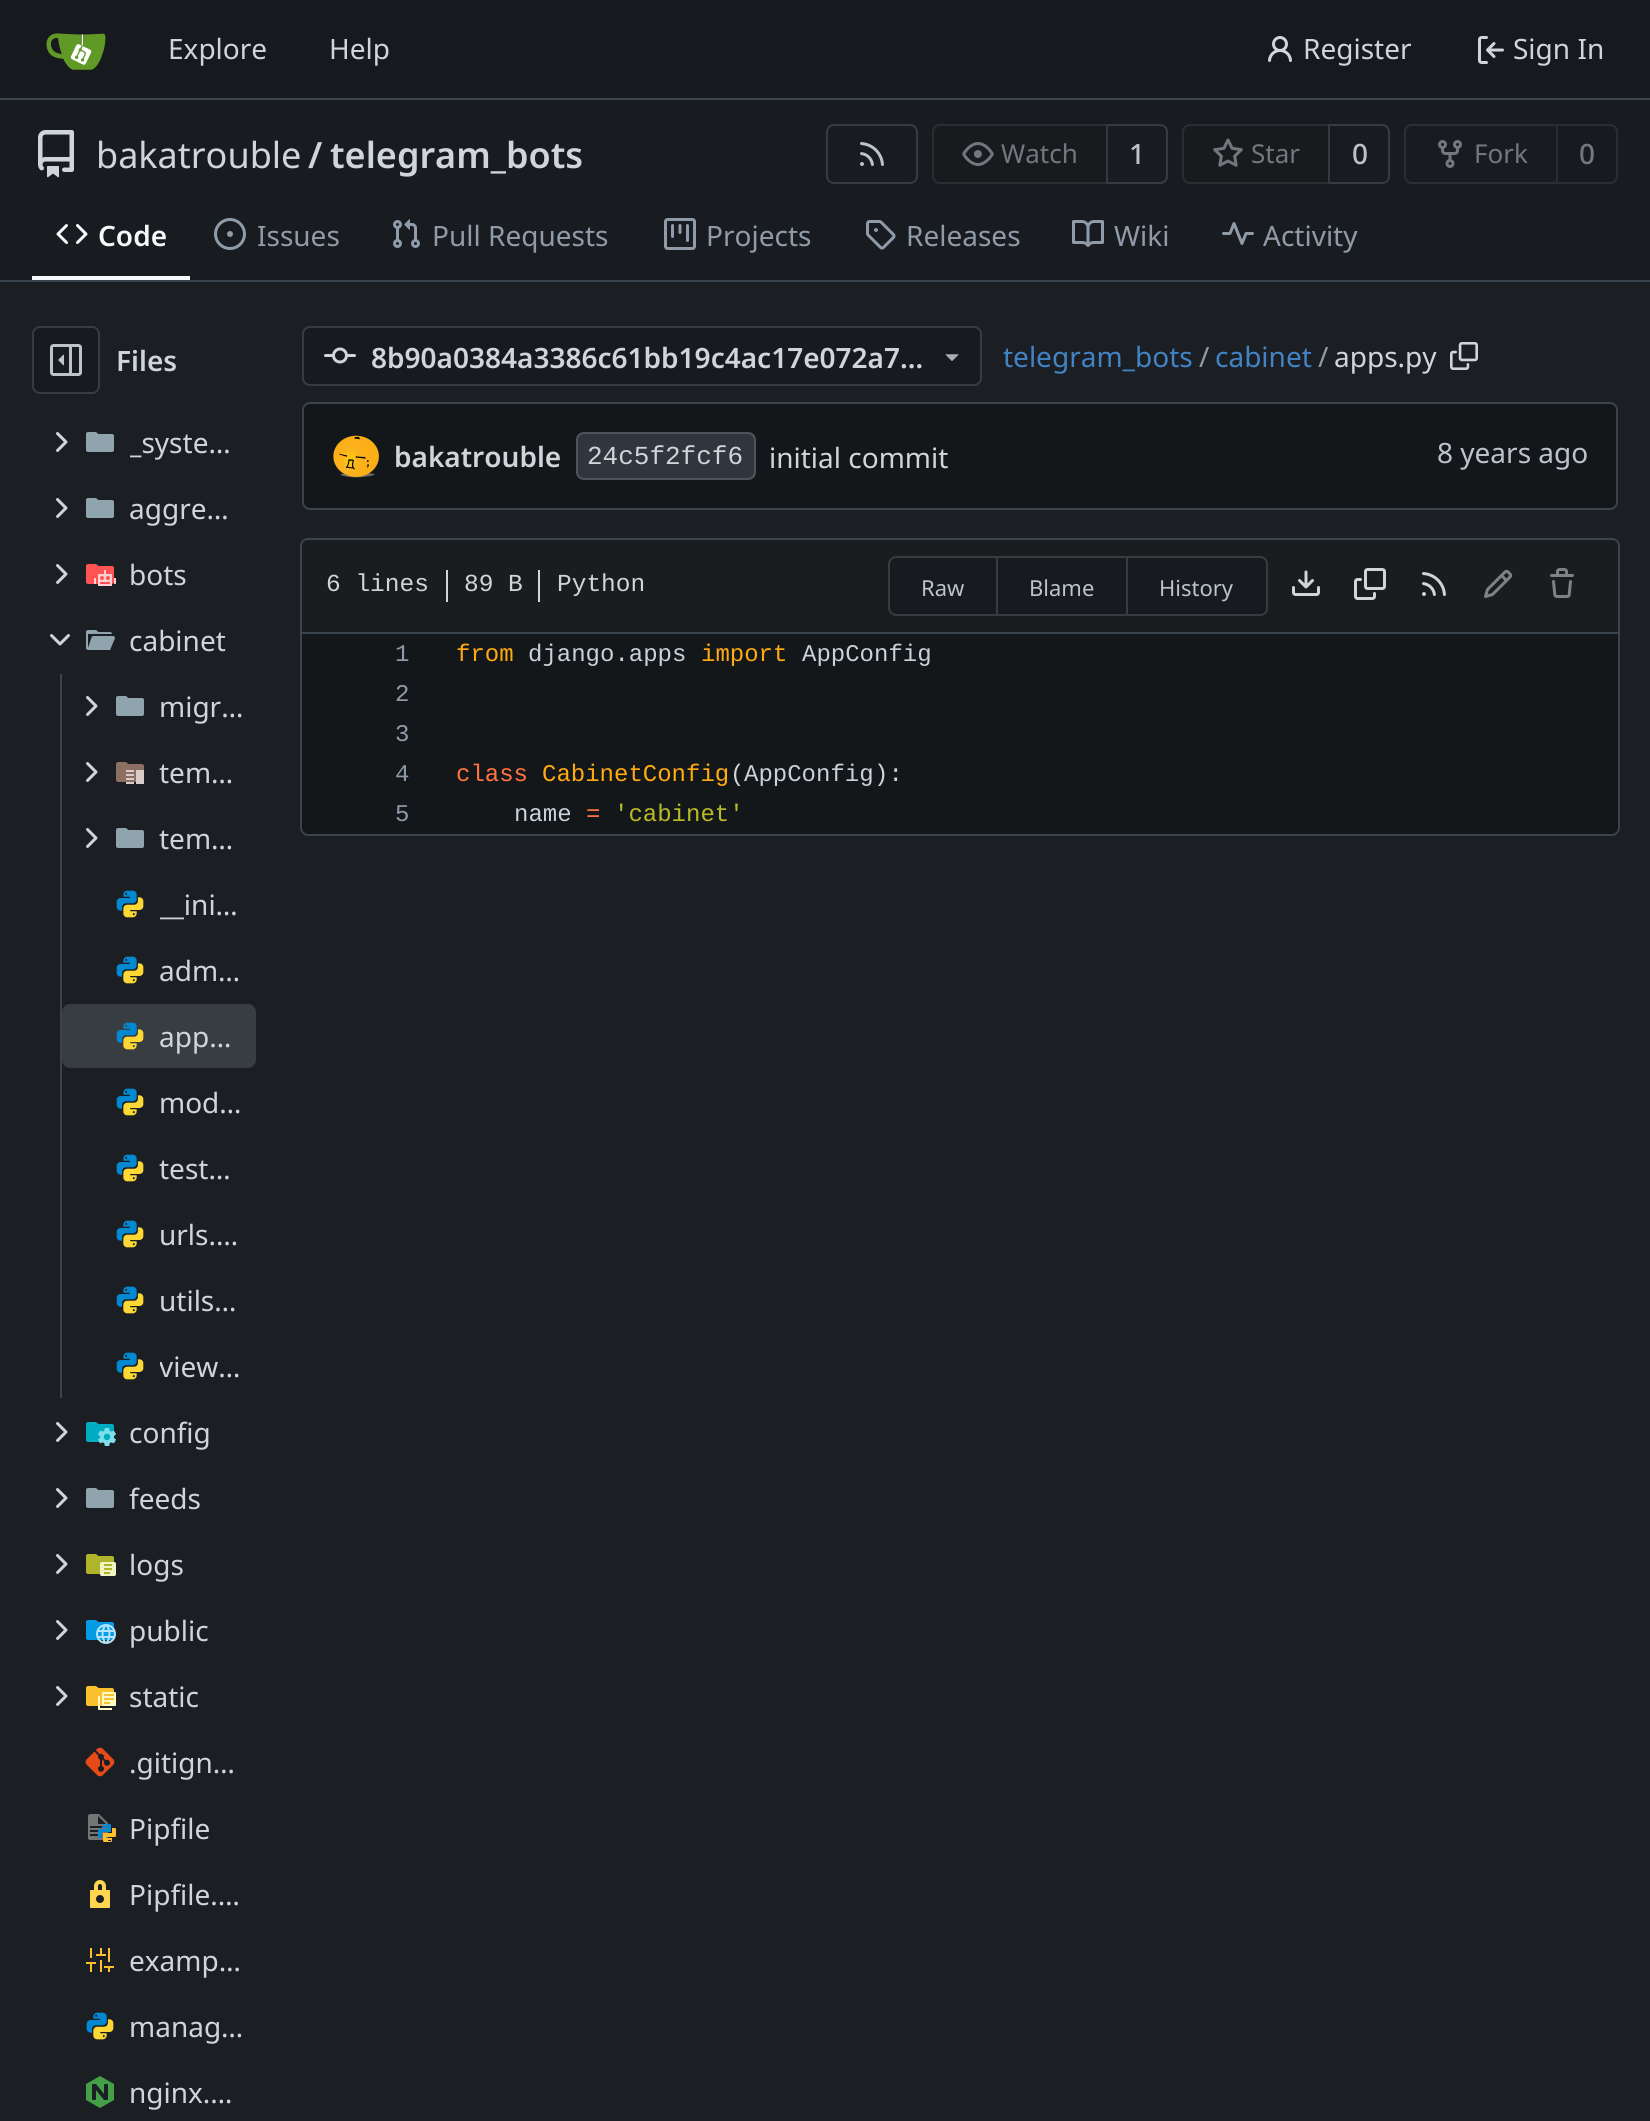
import math
import cairo


def use_color(cr, r, g, b):
  cr.set_source_rgb(r / 255, g / 255, b / 255)

def text(cr, x, y, s, family, size, color, bold=False, italic=False):
  cr.select_font_face(family, cairo.FONT_SLANT_ITALIC if italic else cairo.FONT_SLANT_NORMAL, cairo.FONT_WEIGHT_BOLD if bold else cairo.FONT_WEIGHT_NORMAL)
  cr.set_font_size(size)
  use_color(cr, *color)
  cr.move_to(x, y)
  cr.show_text(s)

def box(cr, x, y, w, h, *color):
  use_color(cr, *color)
  cr.rectangle(x, y, w, h)
  cr.fill()

def round_rect(cr, x, y, w, h, r):
  cr.new_sub_path()
  for i, (u, v) in enumerate([(x + w - r, y + h - r), (x + r, y + h - r), (x + r, y + r), (x + w - r, y + r)]):
    cr.arc(u, v, r, i * math.pi / 2, (i + 1) * math.pi / 2)
  cr.close_path()

def picture(cr, path, x, y, w, h):
  cr.save()
  cr.set_source_surface(cairo.ImageSurface.create_from_png(path), x, y)
  cr.rectangle(x, y, w, h)
  cr.fill()
  cr.restore()

def draw(cr):
  use_color(cr, 27, 31, 35)
  cr.paint()
  box(cr, 0, 0, 1650, 98, 22, 25, 29)
  box(cr, 0, 98, 1650, 2, 59, 68, 76)
  picture(cr, "img_01.png", 46, 33, 60, 37)
  picture(cr, "img_02.png", 1268, 36, 24, 26)
  picture(cr, "img_03.png", 1478, 36, 26, 28)
  box(cr, 0, 100, 1650, 180, 24, 28, 32)
  picture(cr, "img_04.png", 38, 130, 36, 48)
  round_rect(cr, 827, 125, 90, 58, 7)
  use_color(cr, 56, 60, 65)
  cr.stroke()
  picture(cr, "img_05.png", 860, 142, 24, 24)
  cr.new_path()
  cr.move_to(1107, 125)
  cr.line_to(1160, 125)
  cr.curve_to(1164, 125, 1167, 128, 1167, 132)
  cr.line_to(1167, 176)
  cr.curve_to(1167, 180, 1164, 183, 1160, 183)
  cr.line_to(1107, 183)
  cr.close_path()
  cr.stroke()
  cr.set_source_rgba(0.09, 0.102, 0.118, 0.55)
  cr.new_path()
  cr.move_to(940, 124)
  cr.line_to(1108, 124)
  cr.line_to(1108, 184)
  cr.line_to(940, 184)
  cr.curve_to(935.5, 184, 932, 180.5, 932, 176)
  cr.line_to(932, 132)
  cr.curve_to(932, 127.5, 935.5, 124, 940, 124)
  cr.close_path()
  cr.fill()
  cr.new_path()
  cr.move_to(940, 125)
  cr.line_to(1107, 125)
  cr.line_to(1107, 183)
  cr.line_to(940, 183)
  cr.curve_to(936, 183, 933, 180, 933, 176)
  cr.line_to(933, 132)
  cr.curve_to(933, 128, 936, 125, 940, 125)
  cr.close_path()
  cr.set_source_rgba(0.91, 0.953, 1, 0.09)
  cr.stroke()
  picture(cr, "img_06.png", 962, 142, 32, 24)
  cr.new_path()
  cr.move_to(1329, 125)
  cr.line_to(1382, 125)
  cr.curve_to(1386, 125, 1389, 128, 1389, 132)
  cr.line_to(1389, 176)
  cr.curve_to(1389, 180, 1386, 183, 1382, 183)
  cr.line_to(1329, 183)
  cr.close_path()
  use_color(cr, 56, 60, 65)
  cr.stroke()
  cr.set_source_rgba(0.09, 0.102, 0.118, 0.55)
  cr.new_path()
  cr.move_to(1190, 124)
  cr.line_to(1330, 124)
  cr.line_to(1330, 184)
  cr.line_to(1190, 184)
  cr.curve_to(1185.5, 184, 1182, 180.5, 1182, 176)
  cr.line_to(1182, 132)
  cr.curve_to(1182, 127.5, 1185.5, 124, 1190, 124)
  cr.close_path()
  cr.fill()
  cr.new_path()
  cr.move_to(1190, 125)
  cr.line_to(1329, 125)
  cr.line_to(1329, 183)
  cr.line_to(1190, 183)
  cr.curve_to(1186, 183, 1183, 180, 1183, 176)
  cr.line_to(1183, 132)
  cr.curve_to(1183, 128, 1186, 125, 1190, 125)
  cr.close_path()
  cr.set_source_rgba(0.91, 0.953, 1, 0.09)
  cr.stroke()
  picture(cr, "img_07.png", 1213, 138, 30, 29)
  cr.new_path()
  cr.move_to(1412, 125)
  cr.line_to(1557, 125)
  cr.line_to(1557, 183)
  cr.line_to(1412, 183)
  cr.curve_to(1408, 183, 1405, 180, 1405, 176)
  cr.line_to(1405, 132)
  cr.curve_to(1405, 128, 1408, 125, 1412, 125)
  cr.close_path()
  use_color(cr, 42, 47, 51)
  cr.stroke()
  picture(cr, "img_08.png", 1438, 140, 24, 28)
  use_color(cr, 23, 27, 31)
  cr.new_path()
  cr.move_to(1557, 125)
  cr.line_to(1610, 125)
  cr.curve_to(1614, 125, 1617, 128, 1617, 132)
  cr.line_to(1617, 176)
  cr.curve_to(1617, 180, 1614, 183, 1610, 183)
  cr.line_to(1557, 183)
  cr.close_path()
  cr.fill_preserve()
  use_color(cr, 41, 46, 50)
  cr.stroke()
  box(cr, 32, 276, 158, 4, 247, 248, 249)
  picture(cr, "img_09.png", 56, 224, 32, 20)
  picture(cr, "img_10.png", 214, 218, 32, 32)
  picture(cr, "img_11.png", 393, 219, 27, 29)
  picture(cr, "img_12.png", 664, 218, 32, 32)
  picture(cr, "img_13.png", 866, 220, 30, 30)
  picture(cr, "img_14.png", 1072, 220, 32, 27)
  picture(cr, "img_15.png", 1222, 222, 32, 23)
  box(cr, 0, 280, 1650, 2, 59, 68, 76)
  use_color(cr, 23, 26, 30)
  round_rect(cr, 33, 327, 66, 66, 7)
  cr.fill_preserve()
  use_color(cr, 56, 60, 65)
  cr.stroke()
  picture(cr, "img_16.png", 50, 344, 32, 32)
  picture(cr, "img_17.png", 56, 432, 12, 20)
  picture(cr, "img_18.png", 86, 432, 28, 20)
  picture(cr, "img_17.png", 56, 498, 12, 20)
  picture(cr, "img_18.png", 86, 498, 28, 20)
  picture(cr, "img_17.png", 56, 564, 12, 20)
  picture(cr, "img_19.png", 86, 564, 30, 22)
  picture(cr, "img_20.png", 50, 634, 20, 12)
  picture(cr, "img_21.png", 86, 630, 29, 20)
  box(cr, 60, 674, 2, 724, 59, 68, 76)
  picture(cr, "img_17.png", 86, 696, 12, 20)
  picture(cr, "img_18.png", 116, 696, 28, 20)
  picture(cr, "img_17.png", 86, 762, 12, 20)
  picture(cr, "img_22.png", 116, 762, 28, 22)
  picture(cr, "img_17.png", 86, 828, 12, 20)
  picture(cr, "img_18.png", 116, 828, 28, 20)
  picture(cr, "img_23.png", 116, 890, 28, 28)
  picture(cr, "img_23.png", 116, 956, 28, 28)
  use_color(cr, 56, 61, 66)
  round_rect(cr, 62, 1004, 194, 64, 8)
  cr.fill()
  picture(cr, "img_24.png", 116, 1022, 28, 28)
  picture(cr, "img_23.png", 116, 1088, 28, 28)
  picture(cr, "img_23.png", 116, 1154, 28, 28)
  picture(cr, "img_23.png", 116, 1220, 28, 28)
  picture(cr, "img_23.png", 116, 1286, 28, 28)
  picture(cr, "img_23.png", 116, 1352, 28, 28)
  picture(cr, "img_17.png", 56, 1422, 12, 20)
  picture(cr, "img_25.png", 86, 1422, 30, 24)
  picture(cr, "img_17.png", 56, 1488, 12, 20)
  picture(cr, "img_18.png", 86, 1488, 28, 20)
  picture(cr, "img_17.png", 56, 1554, 12, 20)
  picture(cr, "img_26.png", 86, 1554, 30, 22)
  picture(cr, "img_17.png", 56, 1620, 12, 20)
  picture(cr, "img_27.png", 86, 1620, 30, 24)
  picture(cr, "img_17.png", 56, 1686, 12, 20)
  picture(cr, "img_28.png", 86, 1686, 30, 24)
  picture(cr, "img_29.png", 85, 1747, 30, 30)
  picture(cr, "img_30.png", 88, 1814, 28, 28)
  picture(cr, "img_31.png", 90, 1880, 20, 28)
  picture(cr, "img_32.png", 86, 1948, 28, 24)
  picture(cr, "img_23.png", 86, 2012, 28, 28)
  picture(cr, "img_33.png", 86, 2076, 28, 32)
  use_color(cr, 23, 26, 30)
  round_rect(cr, 303, 327, 678, 58, 7)
  cr.fill_preserve()
  use_color(cr, 56, 60, 65)
  cr.stroke()
  picture(cr, "img_34.png", 324, 347, 32, 17)
  picture(cr, "img_35.png", 945, 354, 14, 7)
  picture(cr, "img_36.png", 1450, 342, 28, 28)
  use_color(cr, 20, 23, 26)
  round_rect(cr, 303, 403, 1314, 106, 7)
  cr.fill_preserve()
  use_color(cr, 59, 68, 76)
  cr.stroke()
  picture(cr, "img_37.png", 333, 435, 46, 43)
  use_color(cr, 48, 54, 61)
  round_rect(cr, 576, 432, 180, 48, 8)
  cr.fill()
  round_rect(cr, 577, 433, 178, 46, 7)
  cr.set_source_rgba(0.91, 0.953, 1, 0.16)
  cr.stroke()
  use_color(cr, 26, 29, 31)
  cr.new_path()
  cr.move_to(308, 539)
  cr.line_to(1612, 539)
  cr.curve_to(1616, 539, 1619, 542, 1619, 546)
  cr.line_to(1619, 633)
  cr.line_to(301, 633)
  cr.line_to(301, 546)
  cr.curve_to(301, 542, 304, 539, 308, 539)
  cr.close_path()
  cr.fill_preserve()
  use_color(cr, 59, 68, 76)
  cr.stroke()
  box(cr, 446, 570, 2, 32, 208, 213, 218)
  box(cr, 538, 570, 2, 32, 208, 213, 218)
  use_color(cr, 23, 26, 30)
  cr.new_path()
  cr.move_to(896, 556)
  cr.line_to(996, 556)
  cr.line_to(996, 616)
  cr.line_to(896, 616)
  cr.curve_to(891.5, 616, 888, 612.5, 888, 608)
  cr.line_to(888, 564)
  cr.curve_to(888, 559.5, 891.5, 556, 896, 556)
  cr.close_path()
  cr.fill()
  use_color(cr, 56, 60, 65)
  cr.set_fill_rule(cairo.FILL_RULE_EVEN_ODD)
  cr.new_path()
  cr.move_to(896, 556)
  cr.line_to(996, 556)
  cr.line_to(996, 616)
  cr.line_to(896, 616)
  cr.curve_to(892, 616, 888, 612, 888, 608)
  cr.line_to(888, 564)
  cr.curve_to(888, 560, 892, 556, 896, 556)
  cr.close_path()
  cr.move_to(896, 558)
  cr.line_to(996, 558)
  cr.line_to(996, 614)
  cr.line_to(896, 614)
  cr.curve_to(893, 614, 890, 611, 890, 608)
  cr.line_to(890, 564)
  cr.curve_to(890, 561, 893, 558, 896, 558)
  cr.close_path()
  cr.fill()
  box(cr, 996, 556, 130, 60, 23, 26, 30)
  use_color(cr, 56, 60, 65)
  cr.set_fill_rule(cairo.FILL_RULE_WINDING)
  cr.new_path()
  cr.move_to(996, 556)
  cr.line_to(1126, 556)
  cr.line_to(1126, 558)
  cr.line_to(998, 558)
  cr.close_path()
  cr.fill()
  cr.new_path()
  cr.move_to(1126, 616)
  cr.line_to(996, 616)
  cr.line_to(998, 614)
  cr.line_to(1126, 614)
  cr.close_path()
  cr.fill()
  cr.set_source_rgba(0.91, 0.953, 1, 0.16)
  cr.new_path()
  cr.move_to(996, 616)
  cr.line_to(996, 556)
  cr.line_to(998, 558)
  cr.line_to(998, 614)
  cr.close_path()
  cr.fill()
  use_color(cr, 23, 26, 30)
  cr.new_path()
  cr.move_to(1127, 557)
  cr.line_to(1260, 557)
  cr.curve_to(1264, 557, 1267, 560, 1267, 564)
  cr.line_to(1267, 608)
  cr.curve_to(1267, 612, 1264, 615, 1260, 615)
  cr.line_to(1127, 615)
  cr.close_path()
  cr.fill_preserve()
  use_color(cr, 56, 60, 65)
  cr.stroke()
  picture(cr, "img_38.png", 1292, 570, 28, 26)
  picture(cr, "img_39.png", 1354, 568, 32, 32)
  picture(cr, "img_40.png", 1422, 572, 24, 24)
  picture(cr, "img_41.png", 1484, 569, 29, 29)
  picture(cr, "img_42.png", 1550, 568, 24, 30)
  use_color(cr, 20, 23, 26)
  cr.new_path()
  cr.move_to(300, 634)
  cr.line_to(1620, 634)
  cr.line_to(1620, 828)
  cr.curve_to(1620, 832.5, 1616.5, 836, 1612, 836)
  cr.line_to(308, 836)
  cr.curve_to(303.5, 836, 300, 832.5, 300, 828)
  cr.close_path()
  cr.fill()
  use_color(cr, 59, 68, 76)
  cr.set_fill_rule(cairo.FILL_RULE_EVEN_ODD)
  cr.new_path()
  cr.move_to(300, 634)
  cr.line_to(1620, 634)
  cr.line_to(1620, 828)
  cr.curve_to(1620, 832, 1616, 836, 1612, 836)
  cr.line_to(308, 836)
  cr.curve_to(304, 836, 300, 832, 300, 828)
  cr.close_path()
  cr.move_to(302, 634)
  cr.line_to(1618, 634)
  cr.line_to(1618, 828)
  cr.curve_to(1618, 831, 1615, 834, 1612, 834)
  cr.line_to(308, 834)
  cr.curve_to(305, 834, 302, 831, 302, 828)
  cr.close_path()
  cr.fill()
  text(cr, 168, 59, "Explore", "Noto Sans", 28, (208, 213, 218))
  text(cr, 329, 59, "Help", "Noto Sans", 28, (208, 213, 218))
  text(cr, 1303, 59, "Register", "Noto Sans", 28, (208, 213, 218))
  text(cr, 1513, 59, "Sign In", "Noto Sans", 28, (208, 213, 218))
  text(cr, 96, 168, "bakatrouble", "Noto Sans", 36, (208, 213, 218))
  text(cr, 308, 168, "/", "Noto Sans SemiBold", 36, (208, 213, 218))
  text(cr, 330, 168, "telegram_bots", "Noto Sans SemiBold", 36, (208, 213, 218))
  text(cr, 1001, 163, "Watch", "Noto Sans", 26, (114, 120, 126))
  text(cr, 1129, 164, "1", "Noto Sans Medium", 28, (188, 195, 203))
  text(cr, 1251, 163, "Star", "Noto Sans", 26, (114, 120, 126))
  text(cr, 1352, 164, "0", "Noto Sans Medium", 28, (188, 195, 203))
  text(cr, 1474, 163, "Fork", "Noto Sans", 26, (114, 120, 126))
  text(cr, 1579, 164, "0", "Noto Sans Medium", 28, (114, 120, 126))
  text(cr, 98, 246, "Code", "Noto Sans SemiBold", 28, (247, 248, 249))
  text(cr, 257, 246, "Issues", "Noto Sans", 28, (143, 155, 168))
  text(cr, 432, 246, "Pull Requests", "Noto Sans", 28, (143, 155, 168))
  text(cr, 706, 246, "Projects", "Noto Sans", 28, (143, 155, 168))
  text(cr, 906, 246, "Releases", "Noto Sans", 28, (143, 155, 168))
  text(cr, 1114, 246, "Wiki", "Noto Sans", 28, (143, 155, 168))
  text(cr, 1263, 246, "Activity", "Noto Sans", 28, (143, 155, 168))
  text(cr, 116, 371, "Files", "Noto Sans SemiBold", 28, (208, 213, 218))
  cr.save()
  cr.set_fill_rule(cairo.FILL_RULE_WINDING)
  cr.rectangle(130, 422, 114, 40)
  cr.clip()
  text(cr, 129, 453, "_syste…", "Noto Sans", 28, (208, 213, 218))
  cr.restore()
  text(cr, 129, 519, "aggre…", "Noto Sans", 28, (208, 213, 218))
  text(cr, 129, 585, "bots", "Noto Sans", 28, (208, 213, 218))
  text(cr, 129, 651, "cabinet", "Noto Sans", 28, (208, 213, 218))
  text(cr, 159, 717, "migr…", "Noto Sans", 28, (208, 213, 218))
  text(cr, 159, 783, "tem…", "Noto Sans", 28, (208, 213, 218))
  text(cr, 159, 849, "tem…", "Noto Sans", 28, (208, 213, 218))
  cr.save()
  cr.set_fill_rule(cairo.FILL_RULE_WINDING)
  cr.rectangle(160, 884, 84, 40)
  cr.clip()
  text(cr, 159, 915, "__ini…", "Noto Sans", 28, (208, 213, 218))
  cr.restore()
  text(cr, 159, 981, "adm…", "Noto Sans", 28, (208, 213, 218))
  text(cr, 159, 1047, "app…", "Noto Sans", 28, (208, 213, 218))
  text(cr, 159, 1113, "mod…", "Noto Sans", 28, (208, 213, 218))
  text(cr, 159, 1179, "test…", "Noto Sans", 28, (208, 213, 218))
  text(cr, 159, 1245, "urls.…", "Noto Sans", 28, (208, 213, 218))
  text(cr, 159, 1311, "utils…", "Noto Sans", 28, (208, 213, 218))
  cr.save()
  cr.set_fill_rule(cairo.FILL_RULE_WINDING)
  cr.rectangle(160, 1346, 84, 40)
  cr.clip()
  text(cr, 159, 1377, "view…", "Noto Sans", 28, (208, 213, 218))
  cr.restore()
  text(cr, 129, 1443, "config", "Noto Sans", 28, (208, 213, 218))
  text(cr, 129, 1509, "feeds", "Noto Sans", 28, (208, 213, 218))
  text(cr, 129, 1575, "logs", "Noto Sans", 28, (208, 213, 218))
  text(cr, 129, 1641, "public", "Noto Sans", 28, (208, 213, 218))
  text(cr, 129, 1707, "static", "Noto Sans", 28, (208, 213, 218))
  text(cr, 129, 1773, ".gitign…", "Noto Sans", 28, (208, 213, 218))
  text(cr, 129, 1839, "Pipfile", "Noto Sans", 28, (208, 213, 218))
  text(cr, 129, 1905, "Pipfile.…", "Noto Sans", 28, (208, 213, 218))
  text(cr, 129, 1971, "examp…", "Noto Sans", 28, (208, 213, 218))
  text(cr, 129, 2037, "manag…", "Noto Sans", 28, (208, 213, 218))
  text(cr, 129, 2103, "nginx.…", "Noto Sans", 28, (208, 213, 218))
  text(cr, 371, 368, "8b90a0384a3386c61bb19c4ac17e072a7…", "Noto Sans SemiBold", 28, (208, 213, 218))
  text(cr, 1003, 367, "telegram_bots", "Noto Sans", 28, (65, 131, 196))
  text(cr, 1199, 367, "/", "Noto Sans", 28, (143, 155, 168))
  text(cr, 1215, 367, "cabinet", "Noto Sans", 28, (65, 131, 196))
  text(cr, 1318, 367, "/", "Noto Sans", 28, (143, 155, 168))
  text(cr, 1334, 367, "apps.py", "Noto Sans", 28, (208, 213, 218))
  text(cr, 394, 467, "bakatrouble", "Noto Sans SemiBold", 28, (208, 213, 218))
  text(cr, 587, 464, "24c5f2fcf6", "Liberation Mono", 26, (208, 213, 218))
  text(cr, 769, 468, "initial commit", "Noto Sans", 28, (208, 213, 218))
  text(cr, 1437, 463, "8 years ago", "Noto Sans", 28, (188, 195, 203))
  text(cr, 326, 591, "6 lines", "Liberation Mono", 24.5, (208, 213, 218))
  text(cr, 464, 591, "89 B", "Liberation Mono", 24.5, (208, 213, 218))
  text(cr, 557, 591, "Python", "Liberation Mono", 24.5, (208, 213, 218))
  text(cr, 921, 596, "Raw", "Noto Sans", 22, (188, 195, 203))
  text(cr, 1029, 596, "Blame", "Noto Sans", 22, (188, 195, 203))
  text(cr, 1159, 596, "History", "Noto Sans", 22, (188, 195, 203))
  text(cr, 395, 661, "1", "Liberation Mono", 24, (143, 155, 168))
  text(cr, 456, 661, "from", "Liberation Mono", 24, (255, 170, 16))
  text(cr, 528, 661, "django.apps", "Liberation Mono", 24, (201, 209, 217))
  text(cr, 701, 661, "import", "Liberation Mono", 24, (255, 170, 16))
  text(cr, 802, 661, "AppConfig", "Liberation Mono", 24, (201, 209, 217))
  text(cr, 395, 701, "2", "Liberation Mono", 24, (143, 155, 168))
  text(cr, 395, 741, "3", "Liberation Mono", 24, (143, 155, 168))
  text(cr, 395, 781, "4", "Liberation Mono", 24, (143, 155, 168))
  text(cr, 456, 781, "class", "Liberation Mono", 24, (255, 117, 64))
  text(cr, 542, 781, "CabinetConfig", "Liberation Mono", 24, (255, 170, 16))
  text(cr, 730, 781, "(", "Liberation Mono", 24, (208, 213, 218))
  text(cr, 744, 781, "AppConfig", "Liberation Mono", 24, (201, 209, 217))
  text(cr, 874, 781, "):", "Liberation Mono", 24, (208, 213, 218))
  text(cr, 395, 821, "5", "Liberation Mono", 24, (143, 155, 168))
  text(cr, 514, 821, "name", "Liberation Mono", 24, (201, 209, 217))
  text(cr, 586, 821, "=", "Liberation Mono", 24, (255, 117, 64))
  text(cr, 614, 821, "'cabinet'", "Liberation Mono", 24, (184, 187, 38))


surface = cairo.ImageSurface(cairo.FORMAT_RGB24, 1650, 2121)
cr = cairo.Context(surface)
options = cairo.FontOptions()
options.set_hint_metrics(cairo.HINT_METRICS_OFF)
options.set_hint_style(cairo.HINT_STYLE_NONE)
cr.set_font_options(options)
cr.set_miter_limit(4)
draw(cr)
surface.write_to_png("out.png")
